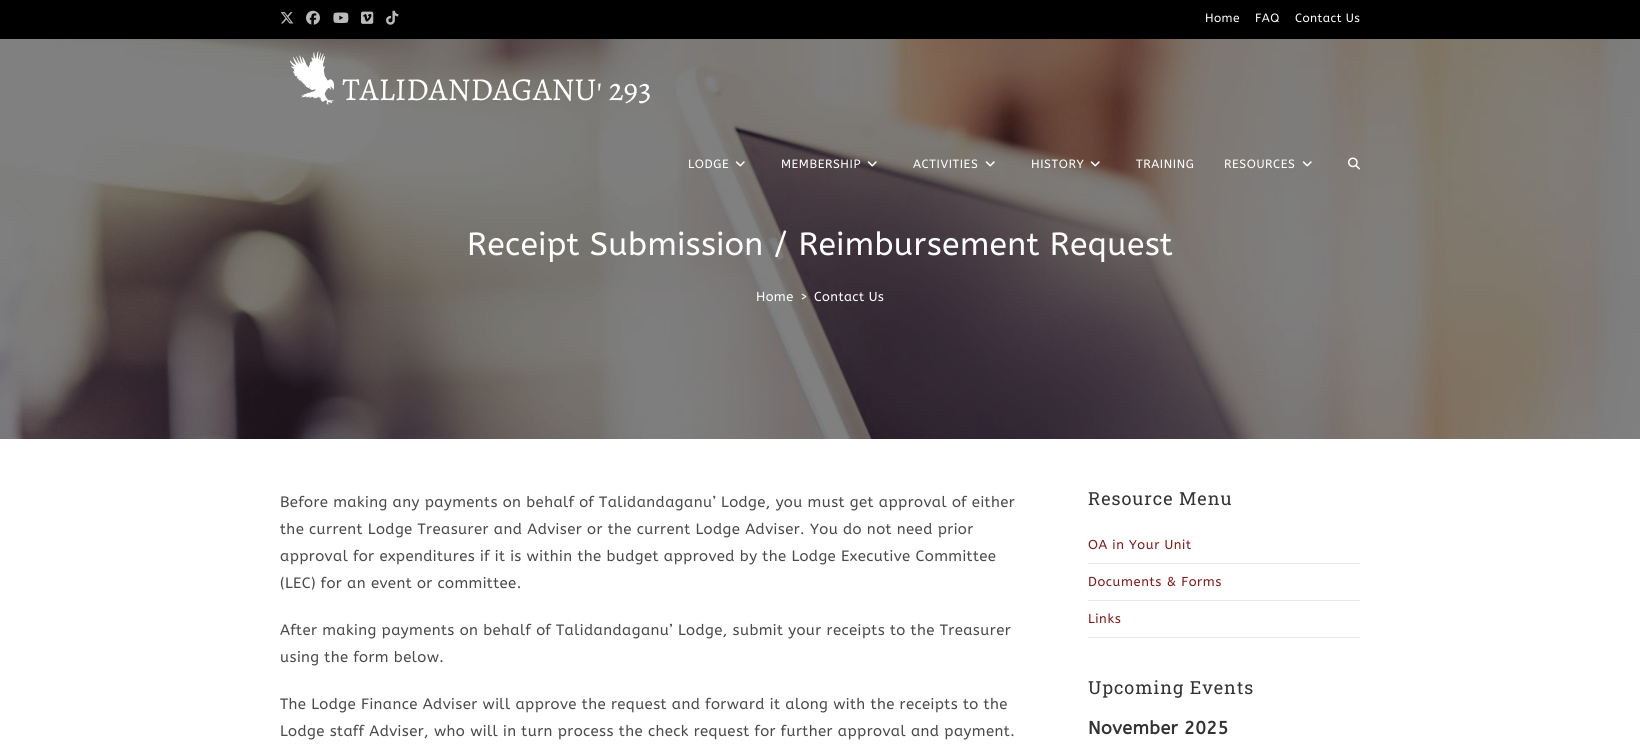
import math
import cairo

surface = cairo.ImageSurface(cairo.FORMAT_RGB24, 1640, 744)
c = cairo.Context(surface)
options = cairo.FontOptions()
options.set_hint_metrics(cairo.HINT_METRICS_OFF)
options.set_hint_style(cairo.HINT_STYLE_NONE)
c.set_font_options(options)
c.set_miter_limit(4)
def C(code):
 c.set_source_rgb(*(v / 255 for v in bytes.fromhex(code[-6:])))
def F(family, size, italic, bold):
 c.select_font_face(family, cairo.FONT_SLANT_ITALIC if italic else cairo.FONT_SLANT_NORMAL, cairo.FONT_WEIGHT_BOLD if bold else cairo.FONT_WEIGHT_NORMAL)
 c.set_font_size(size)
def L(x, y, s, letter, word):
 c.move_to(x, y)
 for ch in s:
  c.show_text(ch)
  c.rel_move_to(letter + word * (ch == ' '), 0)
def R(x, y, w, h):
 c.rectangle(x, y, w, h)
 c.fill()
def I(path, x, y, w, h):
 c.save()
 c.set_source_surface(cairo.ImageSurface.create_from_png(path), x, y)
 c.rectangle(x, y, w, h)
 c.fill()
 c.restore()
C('ffffff')
c.paint()
C('000000')
R(0,0,1640,39)
I('1.png',280,12,14,12)
I('2.png',306,10,14,15)
I('3.png',333,12,16,11)
I('4.png',361,11,13,13)
I('5.png',386,10,13,15)
F('ABeeZee',12,0,0)
C('ffffff')
L(1205,22,'Home',.4,0)
L(1255,22,'FAQ',.4,0)
L(1295,22,'Contact Us',.4,0)
I('13.png',0,39,1640,400)
I('6.png',290,51,360,54)
L(688,168,'LODGE',.6,0)
I('7.png',735,161,10,6)
L(781,168,'MEMBERSHIP',.6,0)
I('8.png',867,161,10,6)
L(913,168,'ACTIVITIES',.6,0)
I('9.png',985,161,10,6)
L(1031,168,'HISTORY',.6,0)
I('10.png',1090,161,10,6)
L(1136,168,'TRAINING',.6,0)
L(1224,168,'RESOURCES',.6,0)
I('11.png',1302,161,10,6)
I('12.png',1348,157,12,13)
F('ABeeZee',32,0,0)
L(467,255,'Receipt Submission / Reimbursement Request',.4,0)
F('ABeeZee',13,0,0)
L(756,301,'Home',.4,0)
L(800,301,'>',.4,0)
L(814,301,'Contact Us',.4,0)
F('ABeeZee',15,0,0)
C('4a4a4a')
L(280,507,'Before making any payments on behalf of Talidandaganu’ Lodge, you must get approval of either',.4,0)
L(280,534,'the current Lodge Treasurer and Adviser or the current Lodge Adviser. You do not need prior',.4,0)
L(280,561,'approval for expenditures if it is within the budget approved by the Lodge Executive Committee',.4,0)
L(280,588,'(LEC) for an event or committee.',.4,0)
L(280,635,'After making payments on behalf of Talidandaganu’ Lodge, submit your receipts to the Treasurer',.4,0)
L(280,662,'using the form below.',.4,0)
L(280,709,'The Lodge Finance Adviser will approve the request and forward it along with the receipts to the',.4,0)
L(280,736,'Lodge staff Adviser, who will in turn process the check request for further approval and payment.',.4,0)
F('Roboto Slab',18,0,0)
C('333333')
L(1088,505,'Resource Menu',1,0)
C('e9e9e9')
R(1088,563,272,1)
F('ABeeZee',13,0,0)
C('821a1a')
L(1088,549,'OA in Your Unit',.6,0)
C('e9e9e9')
R(1088,600,272,1)
C('821a1a')
L(1088,586,'Documents & Forms',.6,0)
C('e9e9e9')
R(1088,637,272,1)
C('821a1a')
L(1088,623,'Links',.6,0)
F('Roboto Slab',18,0,0)
C('333333')
L(1088,694,'Upcoming Events',1,0)
F('ABeeZee',18,0,1)
L(1088,734,'November 2025',.4,0)
surface.write_to_png('o.png')
